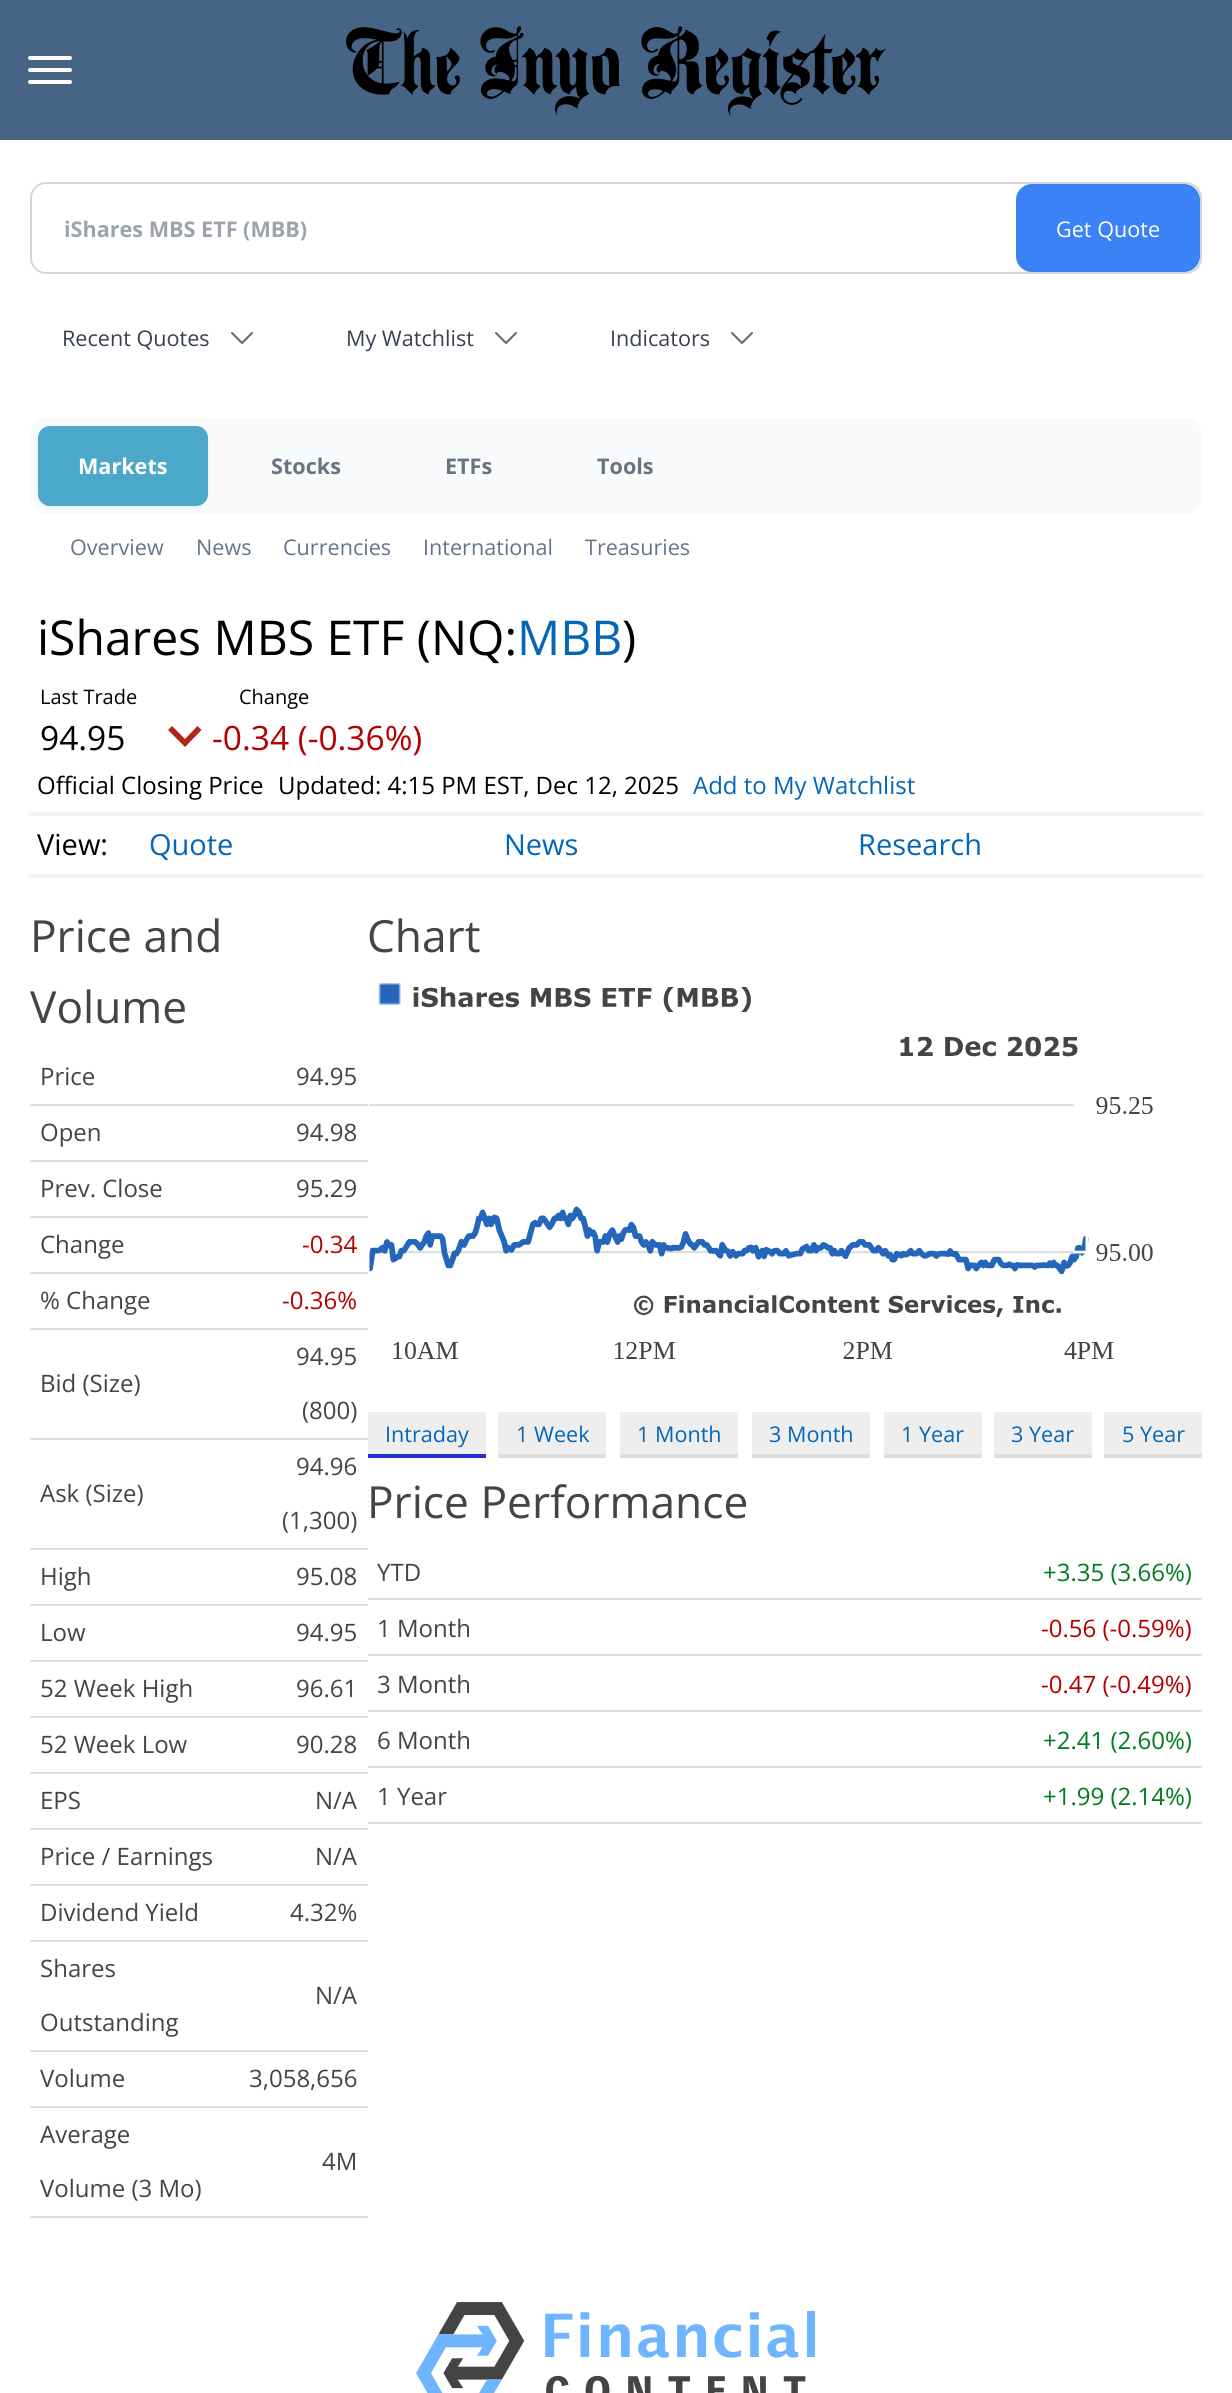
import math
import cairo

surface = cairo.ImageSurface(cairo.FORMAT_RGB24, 1232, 2393)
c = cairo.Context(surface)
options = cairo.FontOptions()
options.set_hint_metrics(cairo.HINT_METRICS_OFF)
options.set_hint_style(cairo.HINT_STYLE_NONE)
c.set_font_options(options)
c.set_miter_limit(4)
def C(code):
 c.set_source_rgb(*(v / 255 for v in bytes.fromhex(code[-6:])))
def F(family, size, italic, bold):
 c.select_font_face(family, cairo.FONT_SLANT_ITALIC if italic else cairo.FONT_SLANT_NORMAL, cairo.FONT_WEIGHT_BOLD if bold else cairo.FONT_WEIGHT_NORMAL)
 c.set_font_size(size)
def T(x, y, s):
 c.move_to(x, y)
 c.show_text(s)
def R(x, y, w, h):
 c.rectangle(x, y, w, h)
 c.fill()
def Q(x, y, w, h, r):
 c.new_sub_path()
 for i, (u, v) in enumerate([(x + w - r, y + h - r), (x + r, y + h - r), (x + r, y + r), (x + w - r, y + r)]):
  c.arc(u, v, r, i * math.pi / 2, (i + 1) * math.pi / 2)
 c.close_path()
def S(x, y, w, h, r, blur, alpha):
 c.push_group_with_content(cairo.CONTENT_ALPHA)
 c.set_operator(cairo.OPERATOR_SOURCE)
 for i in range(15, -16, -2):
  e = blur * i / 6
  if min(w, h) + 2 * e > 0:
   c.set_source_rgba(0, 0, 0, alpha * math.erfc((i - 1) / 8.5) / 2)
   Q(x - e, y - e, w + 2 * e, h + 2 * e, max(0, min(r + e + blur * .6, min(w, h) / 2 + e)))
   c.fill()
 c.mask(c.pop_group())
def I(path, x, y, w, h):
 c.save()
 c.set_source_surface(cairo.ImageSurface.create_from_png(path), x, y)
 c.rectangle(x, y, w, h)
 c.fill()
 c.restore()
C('ffffff')
c.paint()
C('466486')
R(0,0,1232,140)
C('ffffff')
Q(28,56,44,4,2)
c.fill()
Q(28,68,44,4,2)
c.fill()
Q(28,80,44,4,2)
c.fill()
I('1.png',346,26,540,90)
Q(31,183,1170,90,15)
C('d1d5db')
c.stroke()
F('Open Sans',21.6,0,1)
C('9ca3af')
T(64,237,'iShares MBS ETF (MBB)')
C('3b82f6')
Q(1016,184,184,88,16)
c.fill()
F('Open Sans',21.6,0,0)
C('ffffff')
T(1056,237,'Get Quote')
C('374151')
T(62,346,'Recent Quotes')
c.new_path()
c.move_to(252,333)
c.line_to(242,343)
c.line_to(232,333)
C('666666')
c.set_line_cap(cairo.LINE_CAP_ROUND)
c.set_line_join(cairo.LINE_JOIN_ROUND)
c.stroke()
C('374151')
T(346,346,'My Watchlist')
c.new_path()
c.move_to(516,333)
c.line_to(506,343)
c.line_to(496,333)
C('666666')
c.stroke()
C('374151')
T(610,346,'Indicators')
c.new_path()
c.move_to(752,333)
c.line_to(742,343)
c.line_to(732,333)
C('666666')
c.stroke()
C('f8fafc')
Q(30,418,1172,96,16)
c.fill()
C('000000')
S(38,428,170,80,12,2,.05)
C('4ca8c8')
Q(38,426,170,80,12)
c.fill()
F('Open Sans',21.6,0,1)
C('ffffff')
T(78,474,'Markets')
C('6b7280')
T(271,474,'Stocks')
T(445,474,'ETFs')
T(597,474,'Tools')
F('Open Sans',21.6,0,0)
C('64748b')
T(70,555,'Overview')
T(196,555,'News')
T(283,555,'Currencies')
T(423,555,'International')
T(585,555,'Treasuries')
F('Open Sans',48,0,0)
C('000000')
T(37,655,'iShares MBS ETF (NQ:')
C('0466b6')
T(517,655,'MBB')
C('000000')
T(622,655,')')
F('Open Sans',20,0,0)
T(40,704,'Last Trade')
F('Open Sans',33.5,0,0)
T(40,750,'94.95')
F('Open Sans',20,0,0)
T(239,704,'Change')
F('Open Sans',33.5,0,0)
C('b50000')
T(212,750,'-0.34 (-0.36%)')
C('b32317')
c.new_path()
c.move_to(197.5,726)
c.line_to(201.5,730)
c.line_to(185,747)
c.line_to(168,730)
c.line_to(172,726)
c.line_to(185,739)
c.close_path()
c.fill()
F('Open Sans',24,0,0)
C('000000')
T(37,794,'Official Closing Price')
T(278,794,'Updated: 4:15 PM EST, Dec 12, 2025')
C('0466b6')
T(693,794,'Add to My Watchlist')
C('f3f3f3')
R(28,812,1176,4)
R(28,874,1176,4)
F('Open Sans',29,0,0)
C('000000')
T(37,855,'View:')
C('0466b6')
T(149,855,'Quote')
T(504,855,'News')
T(858,855,'Research')
F('Open Sans',44.25,0,0)
C('444444')
T(30,952,'Price and')
T(30,1023,'Volume')
C('dddddd')
R(30,1104,338,2)
F('Open Sans',24,0,0)
C('444444')
T(40,1085,'Price')
T(296,1085,'94.95')
C('dddddd')
R(30,1160,338,2)
C('444444')
T(40,1141,'Open')
T(296,1141,'94.98')
C('dddddd')
R(30,1216,338,2)
C('444444')
T(40,1197,'Prev. Close')
T(296,1197,'95.29')
C('dddddd')
R(30,1272,338,2)
C('444444')
T(40,1253,'Change')
C('b50000')
T(302,1253,'-0.34')
C('dddddd')
R(30,1328,338,2)
C('444444')
T(40,1309,'% Change')
C('b50000')
T(282,1309,'-0.36%')
C('dddddd')
R(30,1438,338,2)
C('444444')
T(40,1392,'Bid (Size)')
T(296,1365,'94.95')
T(302,1419,'(800)')
C('dddddd')
R(30,1548,338,2)
C('444444')
T(40,1502,'Ask (Size)')
T(296,1475,'94.96')
T(282,1529,'(1,300)')
C('dddddd')
R(30,1604,338,2)
C('444444')
T(40,1585,'High')
T(296,1585,'95.08')
C('dddddd')
R(30,1660,338,2)
C('444444')
T(40,1641,'Low')
T(296,1641,'94.95')
C('dddddd')
R(30,1716,338,2)
C('444444')
T(40,1697,'52 Week High')
T(296,1697,'96.61')
C('dddddd')
R(30,1772,338,2)
C('444444')
T(40,1753,'52 Week Low')
T(296,1753,'90.28')
C('dddddd')
R(30,1828,338,2)
C('444444')
T(40,1809,'EPS')
T(315,1809,'N/A')
C('dddddd')
R(30,1884,338,2)
C('444444')
T(40,1865,'Price / Earnings')
T(315,1865,'N/A')
C('dddddd')
R(30,1940,338,2)
C('444444')
T(40,1921,'Dividend Yield')
T(290,1921,'4.32%')
C('dddddd')
R(30,2050,338,2)
C('444444')
T(40,1977,'Shares')
T(40,2031,'Outstanding')
T(315,2004,'N/A')
C('dddddd')
R(30,2106,338,2)
C('444444')
T(40,2087,'Volume')
T(249,2087,'3,058,656')
C('dddddd')
R(30,2216,338,2)
C('444444')
T(40,2143,'Average')
T(40,2197,'Volume (3 Mo)')
T(322,2170,'4M')
F('Open Sans',44.25,0,0)
T(367,952,'Chart')
I('2.png',369,983,784,376)
C('eeeeee')
R(368,1412,118,42)
C('2233cc')
R(368,1454,118,4)
F('Open Sans',21.6,0,0)
C('0466b6')
T(385,1442,'Intraday')
C('eeeeee')
R(498,1412,108,42)
C('dddddd')
R(498,1454,108,4)
C('0466b6')
T(516,1442,'1 Week')
C('eeeeee')
R(620,1412,118,42)
C('dddddd')
R(620,1454,118,4)
C('0466b6')
T(637,1442,'1 Month')
C('eeeeee')
R(752,1412,118,42)
C('dddddd')
R(752,1454,118,4)
C('0466b6')
T(769,1442,'3 Month')
C('eeeeee')
R(884,1412,98,42)
C('dddddd')
R(884,1454,98,4)
C('0466b6')
T(901,1442,'1 Year')
C('eeeeee')
R(994,1412,98,42)
C('dddddd')
R(994,1454,98,4)
C('0466b6')
T(1011,1442,'3 Year')
C('eeeeee')
R(1104,1412,98,42)
C('dddddd')
R(1104,1454,98,4)
C('0466b6')
T(1122,1442,'5 Year')
F('Open Sans',44.25,0,0)
C('444444')
T(367,1518,'Price Performance')
C('dddddd')
R(368,1598,834,2)
F('Open Sans',24,0,0)
C('444444')
T(377,1581,'YTD')
C('007c1d')
T(1043,1581,'+3.35 (3.66%)')
C('dddddd')
R(368,1654,834,2)
C('444444')
T(377,1637,'1 Month')
C('b50000')
T(1041,1637,'-0.56 (-0.59%)')
C('dddddd')
R(368,1710,834,2)
C('444444')
T(377,1693,'3 Month')
C('b50000')
T(1041,1693,'-0.47 (-0.49%)')
C('dddddd')
R(368,1766,834,2)
C('444444')
T(377,1749,'6 Month')
C('007c1d')
T(1043,1749,'+2.41 (2.60%)')
C('dddddd')
R(368,1822,834,2)
C('444444')
T(377,1805,'1 Year')
C('007c1d')
T(1043,1805,'+1.99 (2.14%)')
I('3.png',416,2302,399,91)
surface.write_to_png('o.png')
